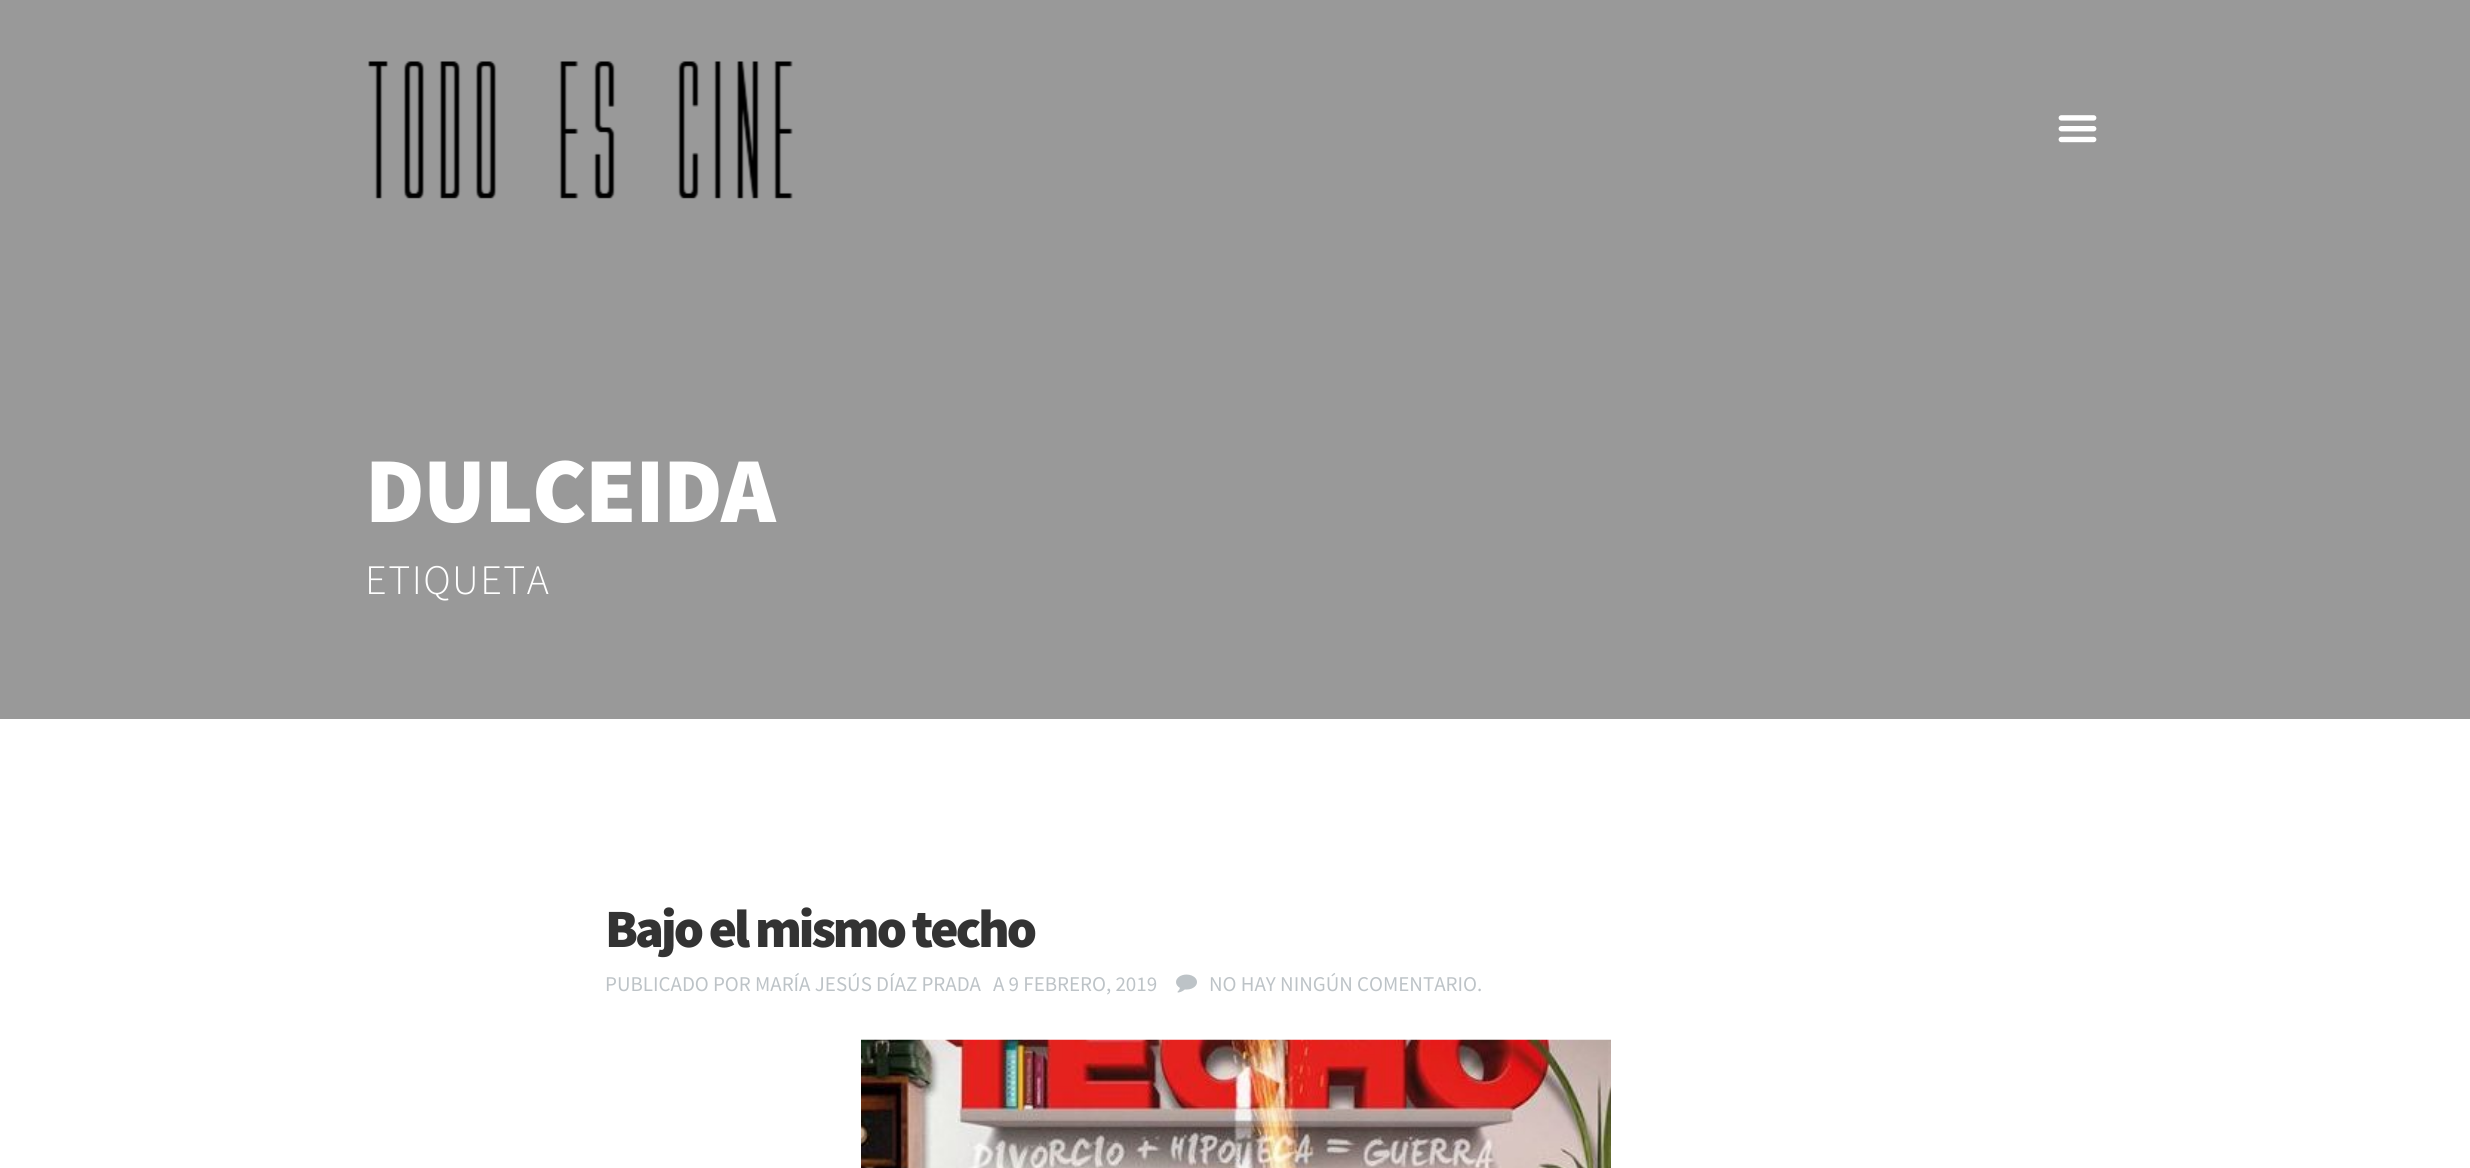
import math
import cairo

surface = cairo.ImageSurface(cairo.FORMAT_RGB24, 2470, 1168)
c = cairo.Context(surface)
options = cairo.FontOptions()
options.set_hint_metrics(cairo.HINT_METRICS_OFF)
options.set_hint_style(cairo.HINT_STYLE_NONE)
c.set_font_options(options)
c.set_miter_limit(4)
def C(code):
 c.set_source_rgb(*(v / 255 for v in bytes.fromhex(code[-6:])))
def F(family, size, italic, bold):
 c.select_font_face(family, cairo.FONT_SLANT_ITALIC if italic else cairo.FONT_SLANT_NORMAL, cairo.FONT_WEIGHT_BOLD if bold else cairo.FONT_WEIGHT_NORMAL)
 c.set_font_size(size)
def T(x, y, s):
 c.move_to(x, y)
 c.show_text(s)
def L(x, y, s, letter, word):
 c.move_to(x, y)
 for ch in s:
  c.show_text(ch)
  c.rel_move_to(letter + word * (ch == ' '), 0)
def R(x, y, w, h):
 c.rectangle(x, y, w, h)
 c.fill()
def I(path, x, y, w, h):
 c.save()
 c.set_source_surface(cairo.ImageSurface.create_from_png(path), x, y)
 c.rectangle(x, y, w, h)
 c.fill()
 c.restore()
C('ffffff')
c.paint()
C('999999')
R(0,0,2470,719)
I('1.png',368,61,425,138)
I('2.png',2058,115,39,28)
F('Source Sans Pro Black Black',93,0,0)
C('ffffff')
L(365,522,'DULCEIDA',-1.5,0)
F('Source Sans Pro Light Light',42,0,0)
L(365,594,'ETIQUETA',1.5,0)
F('Source Sans Pro Black Black',54,0,0)
C('333333')
L(605,947,'Bajo el mismo techo',-3,0)
F('Source Sans Pro',21,0,0)
C('bdc3c7')
T(605,991,'PUBLICADO POR MARÍA JESÚS DÍAZ PRADA')
T(993,991,'A 9 FEBRERO, 2019')
I('3.png',1176,974,21,19)
T(1209,991,'NO HAY NINGÚN COMENTARIO.')
I('4.png',861,1039,750,129)
surface.write_to_png('o.png')
